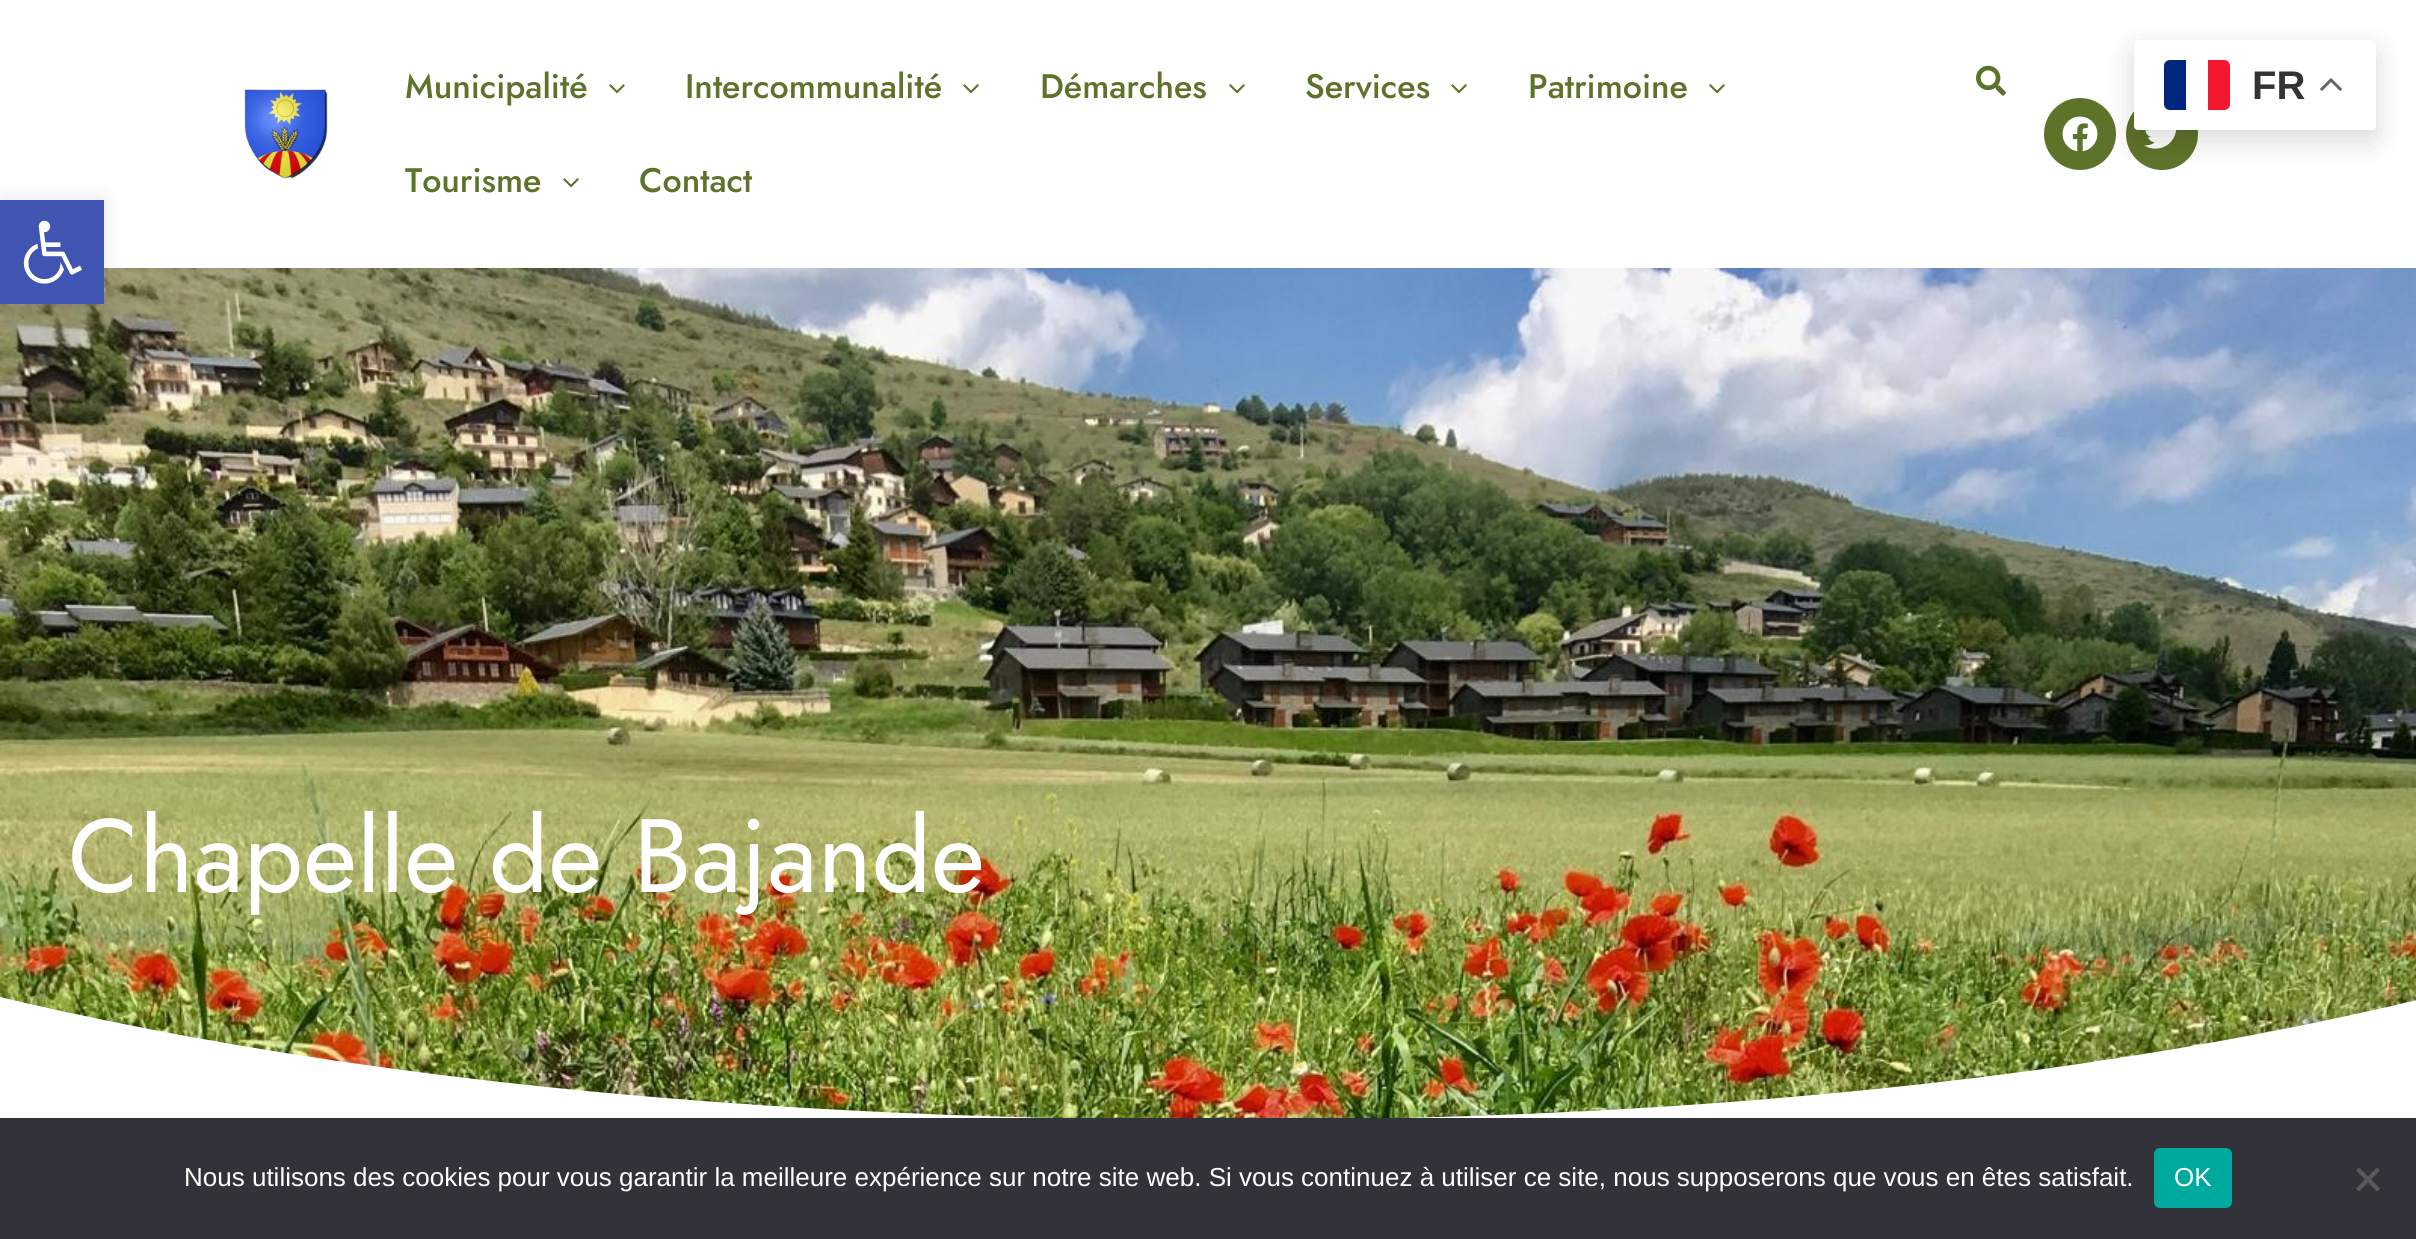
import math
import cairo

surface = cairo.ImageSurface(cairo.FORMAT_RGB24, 2416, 1239)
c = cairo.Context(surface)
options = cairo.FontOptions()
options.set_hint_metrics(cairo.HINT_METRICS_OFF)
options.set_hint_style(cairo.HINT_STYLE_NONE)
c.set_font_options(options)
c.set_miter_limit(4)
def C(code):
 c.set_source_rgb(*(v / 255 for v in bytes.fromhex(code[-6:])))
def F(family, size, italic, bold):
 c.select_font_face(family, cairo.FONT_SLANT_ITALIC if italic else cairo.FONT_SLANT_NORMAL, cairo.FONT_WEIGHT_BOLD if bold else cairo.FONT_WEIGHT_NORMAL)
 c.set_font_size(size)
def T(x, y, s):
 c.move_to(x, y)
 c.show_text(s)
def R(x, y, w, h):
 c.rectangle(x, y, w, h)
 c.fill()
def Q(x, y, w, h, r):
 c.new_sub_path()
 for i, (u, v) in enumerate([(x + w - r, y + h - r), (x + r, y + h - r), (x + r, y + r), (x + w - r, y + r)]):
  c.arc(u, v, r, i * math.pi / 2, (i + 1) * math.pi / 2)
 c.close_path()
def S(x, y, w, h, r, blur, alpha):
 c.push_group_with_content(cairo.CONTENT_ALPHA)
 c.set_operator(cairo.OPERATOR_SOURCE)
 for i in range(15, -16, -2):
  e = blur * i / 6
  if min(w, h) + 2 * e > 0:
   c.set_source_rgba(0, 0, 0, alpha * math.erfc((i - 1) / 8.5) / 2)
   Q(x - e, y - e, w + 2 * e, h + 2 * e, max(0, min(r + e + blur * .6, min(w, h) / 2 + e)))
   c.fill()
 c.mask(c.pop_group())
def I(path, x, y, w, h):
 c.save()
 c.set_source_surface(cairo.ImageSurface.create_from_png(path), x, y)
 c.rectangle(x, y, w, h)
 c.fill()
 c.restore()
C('ffffff')
c.paint()
I('1.png',244,89,84,90)
F('Jost Medium',34,0,0)
C('5e732a')
T(405,98,'Municipalité')
I('2.png',609,84,16,10)
T(685,98,'Intercommunalité')
I('2.png',963,84,16,10)
T(1040,98,'Démarches')
I('2.png',1229,84,16,10)
T(1305,98,'Services')
I('2.png',1451,84,16,10)
T(1528,98,'Patrimoine')
I('2.png',1709,84,16,10)
T(405,192,'Tourisme')
I('2.png',563,178,16,10)
T(639,192,'Contact')
I('3.png',1976,65,30,31)
c.arc(2080,134,36,0,2 * math.pi)
c.fill()
I('4.png',2062,116,36,36)
c.arc(2162,134,36,0,2 * math.pi)
c.fill()
I('5.png',2144,130,33,19)
I('6.png',0,268,2416,850)
F('Jost',104,0,0)
C('ffffff')
T(68,892,'Chapelle de Bajande')
c.new_path()
c.move_to(1208,1120)
c.curve_to(-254,1116,-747,713,-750,608)
c.line_to(-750,1136)
c.line_to(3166,1136)
c.line_to(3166,613)
c.curve_to(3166,710,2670,1124,1208,1120)
c.close_path()
c.fill()
C('000000')
S(2134,50,242,90,4,15,.15)
C('ffffff')
Q(2134,40,242,90,4)
c.fill()
C('00267f')
c.new_path()
c.move_to(2170,60)
c.line_to(2186,60)
c.line_to(2186,110)
c.line_to(2170,110)
c.curve_to(2166.5,110,2164,107.5,2164,104)
c.line_to(2164,66)
c.curve_to(2164,62.5,2166.5,60,2170,60)
c.close_path()
c.fill()
C('f31830')
c.new_path()
c.move_to(2208,60)
c.line_to(2224,60)
c.curve_to(2227.5,60,2230,62.5,2230,66)
c.line_to(2230,104)
c.curve_to(2230,107.5,2227.5,110,2224,110)
c.line_to(2208,110)
c.close_path()
c.fill()
F('Liberation Sans',40,0,1)
C('333333')
T(2252,99,'FR')
I('7.png',2320,78,22,13)
C('000000')
S(0,200,104,104,0,10,.1)
C('4054b2')
R(0,200,104,104)
I('8.png',23,220,59,64)
C('32323a')
R(0,1118,2416,121)
F('Liberation Sans',26,0,0)
C('ffffff')
T(184,1186,'Nous utilisons des cookies pour vous garantir la meilleure expérience sur notre site web. Si vous continuez à utiliser ce site, nous supposerons que vous en êtes satisfait.')
C('00a99d')
Q(2154,1148,78,60,6)
c.fill()
C('ffffff')
T(2174,1186,'OK')
C('59595d')
c.new_path()
c.move_to(2377,1167.5)
c.line_to(2380,1170.5)
c.line_to(2359,1191.5)
c.line_to(2356,1188.5)
c.close_path()
c.fill()
c.new_path()
c.move_to(2356,1170.5)
c.line_to(2359,1167.5)
c.line_to(2380,1188.5)
c.line_to(2377,1191.5)
c.close_path()
c.fill()
surface.write_to_png('o.png')
